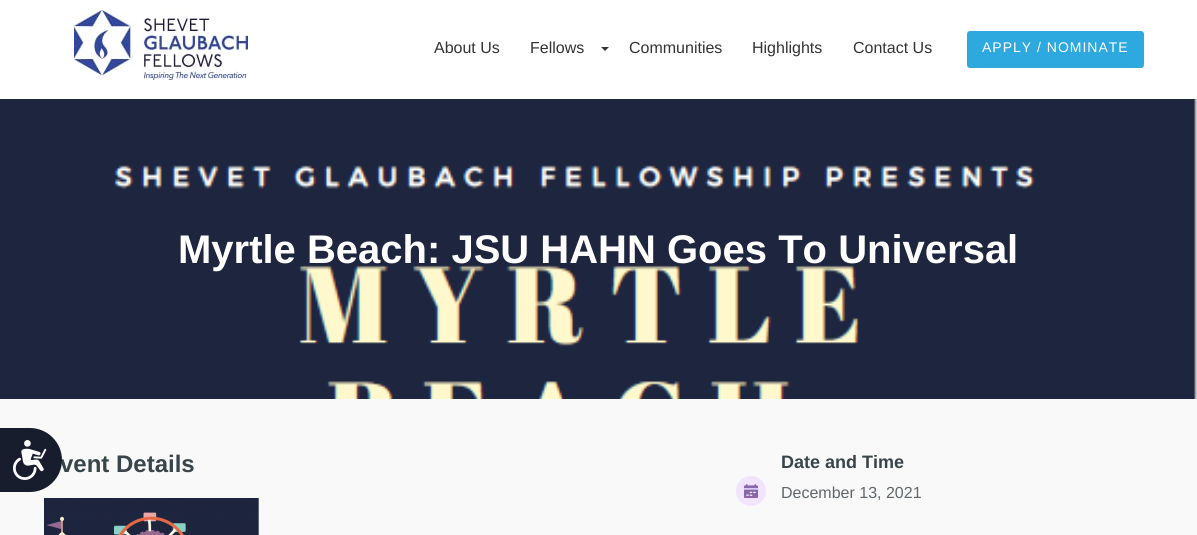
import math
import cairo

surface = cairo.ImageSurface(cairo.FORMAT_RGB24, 1197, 535)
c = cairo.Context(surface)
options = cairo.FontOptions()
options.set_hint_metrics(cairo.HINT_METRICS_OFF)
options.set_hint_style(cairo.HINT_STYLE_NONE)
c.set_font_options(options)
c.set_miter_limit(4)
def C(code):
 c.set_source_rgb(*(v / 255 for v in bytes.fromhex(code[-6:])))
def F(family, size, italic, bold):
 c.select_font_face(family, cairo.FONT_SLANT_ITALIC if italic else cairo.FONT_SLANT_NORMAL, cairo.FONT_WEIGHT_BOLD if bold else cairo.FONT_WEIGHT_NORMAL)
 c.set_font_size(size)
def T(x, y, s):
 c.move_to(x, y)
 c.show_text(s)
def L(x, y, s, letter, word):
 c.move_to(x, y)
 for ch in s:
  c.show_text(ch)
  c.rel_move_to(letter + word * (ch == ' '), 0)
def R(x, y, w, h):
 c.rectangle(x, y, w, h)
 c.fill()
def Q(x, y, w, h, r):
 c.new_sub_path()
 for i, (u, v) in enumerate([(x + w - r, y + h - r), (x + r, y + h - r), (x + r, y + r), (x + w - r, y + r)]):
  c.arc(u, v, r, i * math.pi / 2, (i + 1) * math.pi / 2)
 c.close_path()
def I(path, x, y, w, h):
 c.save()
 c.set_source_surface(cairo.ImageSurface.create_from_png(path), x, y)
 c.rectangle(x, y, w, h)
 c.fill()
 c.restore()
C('ffffff')
c.paint()
I('1.png',74,10,174,70)
F('Liberation Sans',16,0,0)
C('333333')
T(434,53,'About Us')
T(530,53,'Fellows')
c.new_path()
c.move_to(601,47)
c.line_to(609,47)
c.line_to(605,51)
c.close_path()
c.fill()
T(629,53,'Communities')
T(752,53,'Highlights')
T(853,53,'Contact Us')
C('2ea9e0')
Q(967,31,177,37,3)
c.fill()
F('Liberation Sans',14,0,0)
C('ffffff')
L(982,52,'APPLY / NOMINATE',1,0)
C('f9f9f9')
R(0,399,1197,136)
F('Liberation Sans',24,0,1)
C('38454a')
T(60,472,'vent Details')
C('171d2d')
c.new_path()
c.move_to(0,428)
c.line_to(30,428)
c.curve_to(47.5,428,62,442.5,62,460)
c.curve_to(62,477.5,47.5,492,30,492)
c.line_to(0,492)
c.close_path()
c.fill()
I('2.png',13,440,34,40)
I('3.png',0,99,1197,300)
F('Liberation Sans',40,0,1)
C('ffffff')
T(178,263,'Myrtle Beach: JSU HAHN Goes To Universal')
I('4.png',44,498,215,37)
I('5.png',736,476,30,30)
F('Liberation Sans',18,0,1)
C('38454a')
T(781,468,'Date and Time')
F('Liberation Sans',16,0,0)
C('60676a')
T(781,498,'December 13, 2021')
surface.write_to_png('o.png')
